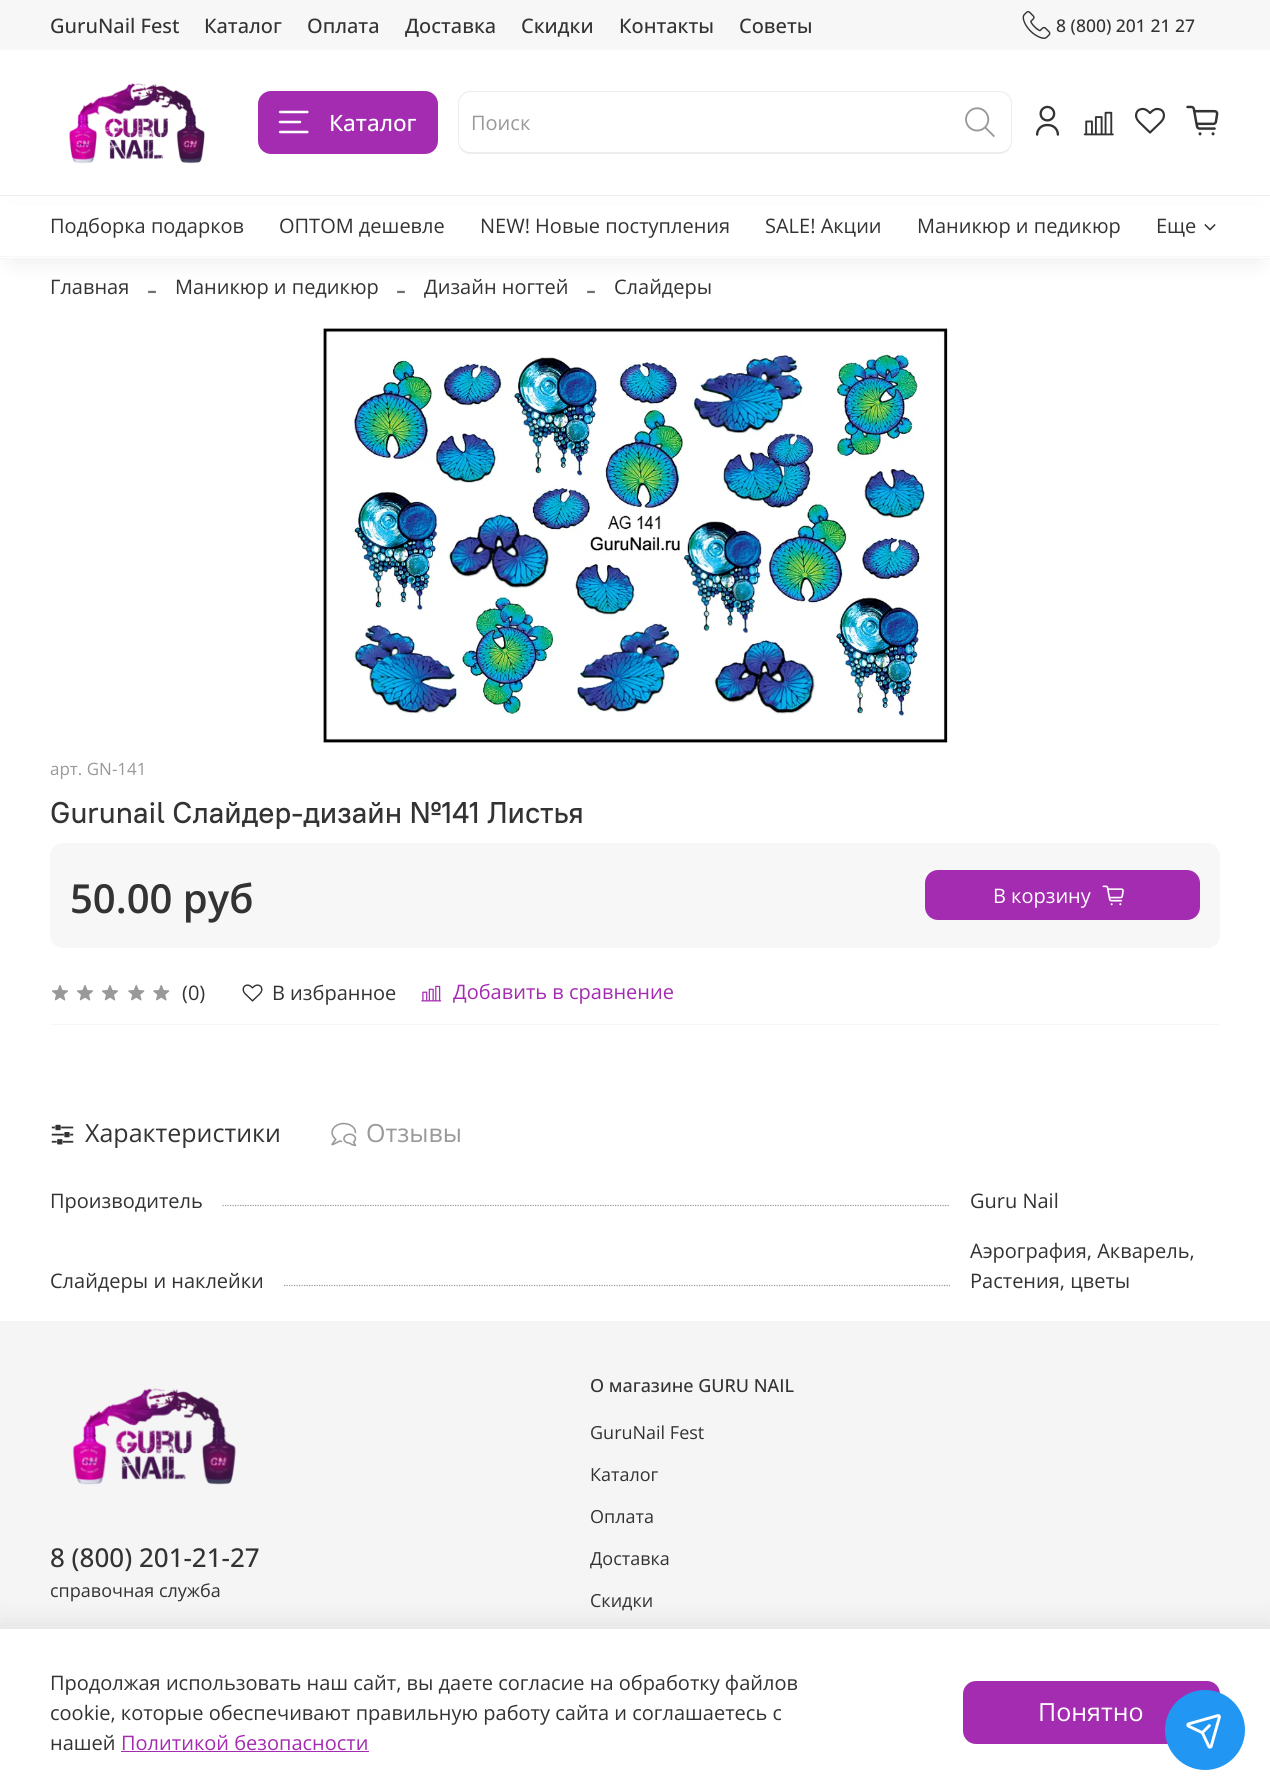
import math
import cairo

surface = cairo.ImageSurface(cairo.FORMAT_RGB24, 1270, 1782)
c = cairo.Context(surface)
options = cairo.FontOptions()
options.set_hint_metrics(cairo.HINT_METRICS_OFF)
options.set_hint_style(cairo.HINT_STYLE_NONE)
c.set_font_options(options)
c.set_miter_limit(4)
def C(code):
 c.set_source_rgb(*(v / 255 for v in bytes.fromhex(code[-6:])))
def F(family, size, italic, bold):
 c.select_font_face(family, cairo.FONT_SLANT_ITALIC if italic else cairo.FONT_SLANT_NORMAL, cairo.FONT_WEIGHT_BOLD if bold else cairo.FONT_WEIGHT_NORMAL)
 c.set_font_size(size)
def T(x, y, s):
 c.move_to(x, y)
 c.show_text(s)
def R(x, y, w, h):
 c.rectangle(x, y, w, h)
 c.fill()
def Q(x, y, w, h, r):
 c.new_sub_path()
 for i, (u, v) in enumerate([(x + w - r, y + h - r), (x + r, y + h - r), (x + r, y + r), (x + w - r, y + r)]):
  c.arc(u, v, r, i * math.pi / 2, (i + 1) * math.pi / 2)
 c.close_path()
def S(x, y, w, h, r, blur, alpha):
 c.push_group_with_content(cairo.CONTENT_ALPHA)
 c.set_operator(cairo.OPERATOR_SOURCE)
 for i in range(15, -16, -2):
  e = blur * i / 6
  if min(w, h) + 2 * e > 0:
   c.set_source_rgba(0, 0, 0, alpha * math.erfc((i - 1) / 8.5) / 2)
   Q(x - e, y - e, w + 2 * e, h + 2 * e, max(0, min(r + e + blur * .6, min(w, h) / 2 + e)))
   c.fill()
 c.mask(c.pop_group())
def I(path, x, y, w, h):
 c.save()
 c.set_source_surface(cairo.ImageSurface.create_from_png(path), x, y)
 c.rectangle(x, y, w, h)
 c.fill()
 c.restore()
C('ffffff')
c.paint()
C('f7f7f7')
R(0,0,1270,50)
F('Open Sans Medium',20,0,0)
C('333333')
T(50,33,'GuruNail Fest')
T(204,33,'Каталог')
T(307,33,'Оплата')
T(405,33,'Доставка')
T(521,33,'Скидки')
T(619,33,'Контакты')
T(739,33,'Советы')
I('1.png',1022,11,29,28)
F('Open Sans Medium',17.5,0,0)
T(1056,32,'8 (800) 201 21 27')
C('ededed')
R(0,195,1270,1)
I('2.png',69,83,136,81)
C('a42cb0')
Q(258,91,180,63,13)
c.fill()
I('3.png',278,110,31,24)
F('Open Sans Medium',22.5,0,0)
C('ffffff')
T(329,131,'Каталог')
C('ededed')
c.set_fill_rule(cairo.FILL_RULE_EVEN_ODD)
c.new_path()
c.move_to(470,91)
c.line_to(950,91)
c.line_to(950,154)
c.line_to(470,154)
c.curve_to(463,154,458,148,458,141)
c.line_to(458,104)
c.curve_to(458,97,463,91,470,91)
c.close_path()
c.move_to(470,92)
c.line_to(950,92)
c.line_to(950,152)
c.line_to(470,152)
c.curve_to(464,152,459,147,459,141)
c.line_to(459,104)
c.curve_to(459,98,464,92,470,92)
c.close_path()
c.fill()
F('Open Sans',20,0,0)
C('999999')
T(471,130,'Поиск')
C('ededed')
c.new_path()
c.move_to(950,91)
c.line_to(1000,91)
c.curve_to(1007,91,1012,97,1012,104)
c.line_to(1012,141)
c.curve_to(1012,148,1007,154,1000,154)
c.line_to(950,154)
c.close_path()
c.move_to(950,92)
c.line_to(1000,92)
c.curve_to(1006,92,1011,98,1011,104)
c.line_to(1011,141)
c.curve_to(1011,147,1006,152,1000,152)
c.line_to(950,152)
c.close_path()
c.fill()
I('4.png',965,107,30,30)
I('5.png',1035,105,25,31)
I('6.png',1083,111,31,25)
I('7.png',1135,107,30,27)
I('8.png',1186,105,33,31)
C('000000')
S(13,221,1245,37,0,12.5,.1)
C('ffffff')
R(0,205,1270,53)
C('f7f7f7')
R(0,256,1270,1)
C('333333')
T(50,233,'Подборка подарков')
T(279,233,'ОПТОМ дешевле')
T(480,233,'NEW! Новые поступления')
T(765,233,'SALE! Акции')
T(917,233,'Маникюр и педикюр')
T(1156,233,'Еще')
I('9.png',1204,224,12,7)
C('f7f7f7')
R(0,258,1270,1)
C('333333')
T(50,294,'Главная')
F('Liberation Serif',30,0,0)
C('707070')
T(147,299,'-')
F('Open Sans',20,0,0)
C('333333')
T(175,294,'Маникюр и педикюр')
F('Liberation Serif',30,0,0)
C('707070')
T(396,299,'-')
F('Open Sans',20,0,0)
C('333333')
T(424,294,'Дизайн ногтей')
F('Liberation Serif',30,0,0)
C('707070')
T(586,299,'-')
F('Open Sans',20,0,0)
C('333333')
T(614,294,'Слайдеры')
I('10.png',323,328,625,415)
F('Open Sans',17,0,0)
C('999999')
T(50,775,'арт. GN-141')
F('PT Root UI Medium',30,0,0)
C('333333')
T(50,823,'Gurunail Слайдер-дизайн №141 Листья')
C('f7f7f7')
Q(50,843,1170,105,13)
c.fill()
F('Open Sans SemiBold',40,0,0)
C('333333')
T(70,913,'50.00 руб')
C('a42cb0')
Q(925,870,275,50,13)
c.fill()
F('Open Sans',20,0,0)
C('ffffff')
T(993,903,'В корзину')
I('11.png',1102,885,22,21)
C('f7f7f7')
R(50,1024,1170,1)
I('12.png',52,985,16,16)
I('12.png',77,985,16,16)
I('12.png',102,985,16,16)
I('13.png',128,985,17,16)
I('13.png',153,985,17,16)
C('333333')
T(182,1000,'(0)')
I('14.png',242,984,21,18)
T(272,1000,'В избранное')
I('15.png',421,985,21,17)
C('a42cb0')
T(453,999,'Добавить в сравнение')
I('16.png',51,1124,23,21)
F('Open Sans',25,0,0)
C('333333')
T(85,1142,'Характеристики')
I('17.png',331,1122,26,25)
C('999999')
T(366,1142,'Отзывы')
F('Open Sans',20,0,0)
C('333333')
T(50,1208,'Производитель')
c.new_path()
c.move_to(222.5,1205.5)
c.line_to(950,1205.5)
C('999999')
c.set_line_width(1.2)
c.set_dash([1.25,1.25])
c.stroke()
C('333333')
T(970,1208,'Guru Nail')
T(50,1288,'Слайдеры и наклейки')
c.new_path()
c.move_to(284,1285.5)
c.line_to(950,1285.5)
C('999999')
c.stroke()
C('333333')
T(970,1258,'Аэрография, Акварель,')
T(970,1288,'Растения, цветы')
C('f5f5f6')
R(0,1321,1270,308)
I('18.png',72,1388,164,97)
F('Open Sans Medium',26,0,0)
C('333333')
T(50,1567,'8 (800) 201-21-27')
F('Open Sans',18,0,0)
T(50,1597,'справочная служба')
F('Open Sans Medium',18,0,0)
T(590,1392,'О магазине GURU NAIL')
F('Open Sans',18,0,0)
T(590,1439,'GuruNail Fest')
T(590,1481,'Каталог')
T(590,1523,'Оплата')
T(590,1565,'Доставка')
T(590,1607,'Скидки')
C('000000')
S(-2,1625,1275,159,0,14.5,.09)
C('ffffff')
R(0,1629,1270,153)
F('Open Sans',20,0,0)
C('333333')
T(50,1690,'Продолжая использовать наш сайт, вы даете согласие на обработку файлов')
T(50,1720,'cookie, которые обеспечивают правильную работу сайта и соглашаетесь с')
T(50,1750,'нашей')
C('a42cb0')
T(121,1750,'Политикой безопасности')
R(121,1751,248,1)
Q(963,1681,257,63,13)
c.fill()
F('Open Sans',25,0,0)
C('ffffff')
T(1038,1721,'Понятно')
C('2196f3')
c.new_path()
c.arc(1205,1730,40,0,2 * math.pi)
c.fill()
I('19.png',1186,1714,35,35)
surface.write_to_png('o.png')
